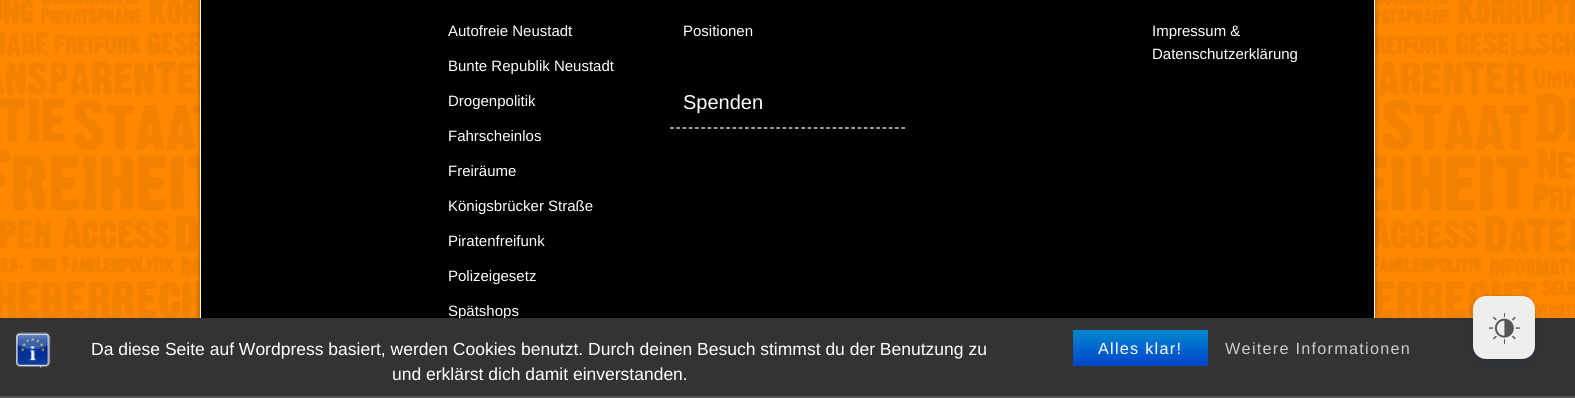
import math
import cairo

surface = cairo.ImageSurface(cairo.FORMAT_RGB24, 1575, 398)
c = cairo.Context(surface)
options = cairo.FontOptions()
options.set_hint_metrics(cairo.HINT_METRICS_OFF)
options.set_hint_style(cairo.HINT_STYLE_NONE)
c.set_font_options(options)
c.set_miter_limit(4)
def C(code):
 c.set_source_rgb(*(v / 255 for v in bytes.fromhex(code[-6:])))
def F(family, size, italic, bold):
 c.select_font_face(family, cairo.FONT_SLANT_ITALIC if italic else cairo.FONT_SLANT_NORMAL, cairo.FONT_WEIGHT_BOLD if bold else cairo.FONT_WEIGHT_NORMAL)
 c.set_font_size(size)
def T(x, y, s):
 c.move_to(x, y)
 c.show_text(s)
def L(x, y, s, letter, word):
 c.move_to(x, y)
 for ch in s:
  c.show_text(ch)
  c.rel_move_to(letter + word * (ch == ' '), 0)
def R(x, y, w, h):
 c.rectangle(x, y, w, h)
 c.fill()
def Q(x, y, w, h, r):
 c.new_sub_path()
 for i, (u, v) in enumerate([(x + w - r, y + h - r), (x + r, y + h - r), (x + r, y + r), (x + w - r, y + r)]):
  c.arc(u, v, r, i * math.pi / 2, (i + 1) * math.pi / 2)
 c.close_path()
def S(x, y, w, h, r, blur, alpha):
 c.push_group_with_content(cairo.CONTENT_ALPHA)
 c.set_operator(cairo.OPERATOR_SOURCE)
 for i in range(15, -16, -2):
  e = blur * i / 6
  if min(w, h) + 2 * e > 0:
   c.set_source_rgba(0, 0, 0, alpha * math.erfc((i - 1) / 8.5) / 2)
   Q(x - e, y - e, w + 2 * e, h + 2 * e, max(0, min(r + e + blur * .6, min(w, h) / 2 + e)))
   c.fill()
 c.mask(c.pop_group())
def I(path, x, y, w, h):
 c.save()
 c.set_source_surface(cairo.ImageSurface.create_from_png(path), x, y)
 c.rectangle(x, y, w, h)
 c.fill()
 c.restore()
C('ffffff')
c.paint()
I('1.png',0,0,1575,318)
C('000000')
S(200,-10,1175,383,2.5,2.5,.33)
C('000000')
R(201,0,1173,318)
c.rectangle(200.5,-.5,1174,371)
C('ffffff')
c.set_line_width(1)
c.stroke()
F('Liberation Sans',15,0,0)
T(448,36,'Autofreie Neustadt')
T(448,71,'Bunte Republik Neustadt')
T(448,106,'Drogenpolitik')
T(448,141,'Fahrscheinlos')
T(448,176,'Freiräume')
T(448,211,'Königsbrücker Straße')
T(448,246,'Piratenfreifunk')
T(448,281,'Polizeigesetz')
T(448,316,'Spätshops')
T(683,36,'Positionen')
T(1152,36,'Impressum &')
T(1152,59,'Datenschutzerklärung')
c.new_path()
c.move_to(670,128)
c.line_to(905,128)
c.set_line_width(1.2)
c.set_dash([3.75,2.5])
c.stroke()
F('Liberation Sans',20,0,0)
T(683,109,'Spenden')
C('333333')
R(0,318,1575,78)
C('555555')
R(0,396,1575,2)
I('2.png',16,332,35,36)
F('Liberation Sans',17.5,0,0)
C('ffffff')
T(91,355,'Da diese Seite auf Wordpress basiert, werden Cookies benutzt. Durch deinen Besuch stimmst du der Benutzung zu')
T(392,380,'und erklärst dich damit einverstanden.')
gradient = cairo.LinearGradient(1140,330,1140,366)
gradient.add_color_stop_rgba(0,0,0.533,0.8,1)
gradient.add_color_stop_rgba(1,0,0.267,0.8,1)
c.set_source(gradient)
R(1073,330,135,36)
F('Liberation Sans',16.25,0,0)
C('ffffff')
L(1098,354,'Alles klar!',1.25,0)
C('cccccc')
L(1225,354,'Weitere Informationen',1.25,0)
Q(1471.5,295.5,64,64,13.5)
c.set_source_rgba(0.035,0.118,0.259,0.08)
c.set_line_width(1)
c.set_dash([])
c.stroke()
C('091e42')
S(1475,304,58,57,10,5,.25)
C('eeeeee')
Q(1473,296,62,63,13)
c.fill()
I('3.png',1489,313,31,31)
surface.write_to_png('o.png')
